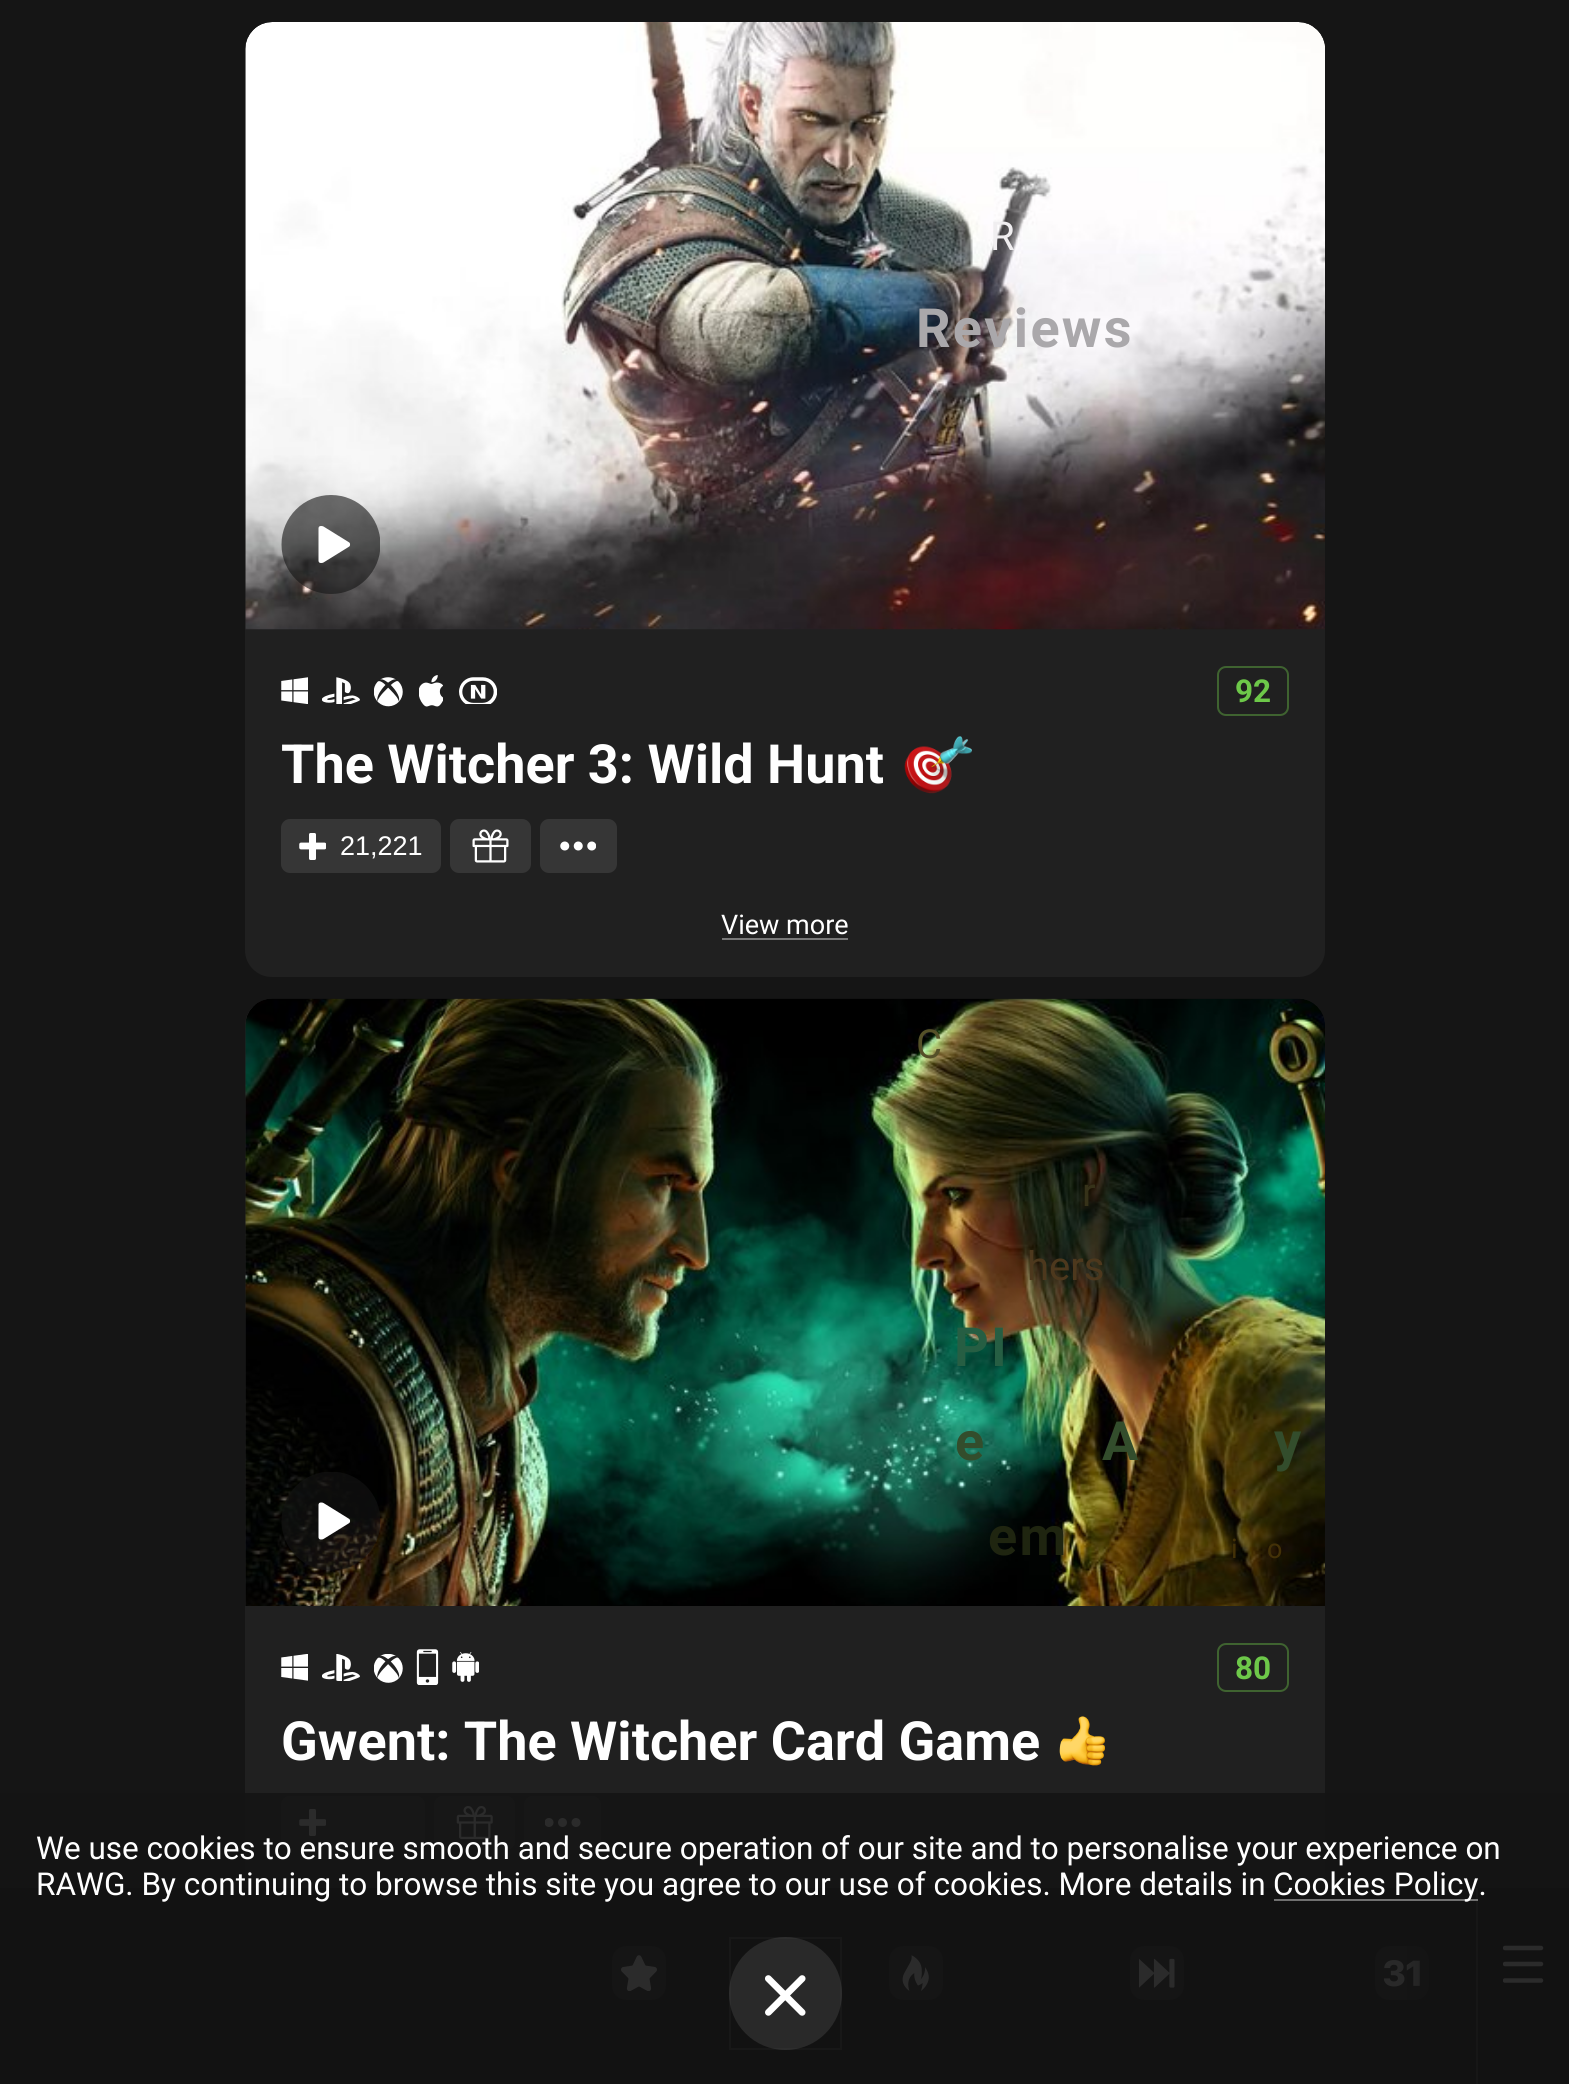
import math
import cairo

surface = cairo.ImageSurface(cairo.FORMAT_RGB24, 1569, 2084)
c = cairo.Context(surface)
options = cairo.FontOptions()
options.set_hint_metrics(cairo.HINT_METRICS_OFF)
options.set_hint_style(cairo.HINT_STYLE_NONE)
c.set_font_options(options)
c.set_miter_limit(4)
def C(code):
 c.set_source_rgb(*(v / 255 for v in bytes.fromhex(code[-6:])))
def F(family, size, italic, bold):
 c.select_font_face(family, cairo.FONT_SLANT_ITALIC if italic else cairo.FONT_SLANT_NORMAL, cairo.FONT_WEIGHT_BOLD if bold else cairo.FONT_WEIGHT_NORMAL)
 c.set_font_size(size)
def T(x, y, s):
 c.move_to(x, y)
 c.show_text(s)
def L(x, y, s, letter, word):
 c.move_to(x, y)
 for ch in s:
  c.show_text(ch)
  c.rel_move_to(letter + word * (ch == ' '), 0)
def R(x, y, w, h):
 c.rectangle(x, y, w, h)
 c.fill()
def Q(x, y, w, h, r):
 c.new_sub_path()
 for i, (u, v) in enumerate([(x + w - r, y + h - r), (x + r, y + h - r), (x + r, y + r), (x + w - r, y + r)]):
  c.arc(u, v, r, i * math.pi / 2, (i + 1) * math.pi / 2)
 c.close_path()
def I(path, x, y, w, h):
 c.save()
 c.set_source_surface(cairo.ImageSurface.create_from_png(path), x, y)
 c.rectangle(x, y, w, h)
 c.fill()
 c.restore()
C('151515')
c.paint()
C('202020')
Q(245,23,1080,954,27)
c.fill()
I('1.png',245,22,1080,608)
F('Roboto',40,0,0)
C('f0eef0')
T(990,250,'R')
F('Roboto',54,0,1)
C('aaa8ab')
L(916,347,'Reviews',2.25,0)
C('202020')
Q(245,999,1080,954,27)
c.fill()
I('11.png',245,998,1080,608)
F('Roboto',40,0,0)
C('555028')
T(916,1058,'C')
C('363219')
T(1082,1206,'r')
C('4d381d')
T(1027,1280,'hers')
F('Roboto',54,0,1)
C('265e43')
L(954,1366,'PI',2.25,0)
C('334d2c')
L(955,1460,'e',2.25,0)
L(1102,1460,'A',2.25,0)
L(1274,1460,'y',2.25,0)
C('1f2510')
L(988,1555,'em',2.25,0)
c.save()
c.rectangle(281,495,99,99)
c.clip()
c.set_source_rgba(0.082,0.082,0.082,0.6)
c.arc(331,544.5,49.5,0,2 * math.pi)
c.fill()
c.restore()
C('ffffff')
c.new_path()
c.move_to(348.5,542)
c.line_to(323.5,526.5)
c.curve_to(322.5,526,322,526,321,526)
c.curve_to(318.5,526,318.5,528,318.5,528.5)
c.line_to(318.5,560.5)
c.curve_to(318.5,561,318.5,563,321,563)
c.curve_to(322,563,322.5,563,323.5,562.5)
c.line_to(348.5,547)
c.curve_to(350.5,546,350,544.5,350,544.5)
c.curve_to(350,544.5,350.5,543,348.5,542)
c.close_path()
c.fill()
I('2.png',281,677,27,27)
I('3.png',322,677,38,27)
I('4.png',374,677,29,30)
I('5.png',419,675,24,32)
I('6.png',459,677,38,27)
Q(1218,667,70,48,8)
C('3f6330')
c.stroke()
F('Roboto',31.5,0,1)
C('6dc849')
T(1235,702,'92')
F('Roboto',54,0,1)
C('ffffff')
T(281,783,'The Witcher 3: Wild Hunt')
I('7.png',904,736,68,58)
C('363636')
Q(281,819,160,54,9)
c.fill()
I('8.png',299,833,27,27)
F('Liberation Sans',27,0,0)
C('ffffff')
T(340,855,'21,221')
C('363636')
Q(450,819,81,54,9)
c.fill()
I('9.png',472,829,37,34)
Q(540,819,77,54,9)
c.fill()
I('10.png',560,841,36,10)
C('797979')
R(722,938,126,2)
F('Roboto',27,0,0)
C('ffffff')
T(721,934,'View more')
c.save()
c.rectangle(281,1472,99,99)
c.clip()
c.set_source_rgba(0.082,0.082,0.082,0.6)
c.arc(331,1521,49.5,0,2 * math.pi)
c.fill()
c.restore()
c.new_path()
c.move_to(348.5,1518.5)
c.line_to(323.5,1503)
c.curve_to(322.5,1502.5,322,1502.5,321,1502.5)
c.curve_to(318.5,1502.5,318.5,1504.5,318.5,1505)
c.line_to(318.5,1537)
c.curve_to(318.5,1537.5,318.5,1539.5,321,1539.5)
c.curve_to(322,1539.5,322.5,1539.5,323.5,1539)
c.line_to(348.5,1523.5)
c.curve_to(350.5,1522.5,350,1521,350,1521)
c.curve_to(350,1521,350.5,1519.5,348.5,1518.5)
c.close_path()
c.fill()
C('433107')
T(1231,1558,'i')
T(1267,1558,'o')
I('12.png',281,1654,27,27)
I('13.png',322,1654,38,27)
I('14.png',374,1654,29,29)
I('15.png',416,1649,23,36)
I('16.png',452,1652,27,30)
Q(1218,1644,70,47,8)
C('3f6330')
c.stroke()
F('Roboto',31.5,0,1)
C('6dc849')
T(1235,1679,'80')
F('Roboto',54,0,1)
C('ffffff')
T(281,1760,'Gwent: The Witcher Card Game')
I('17.png',1059,1716,46,50)
C('363636')
Q(281,1796,144,54,9)
c.fill()
I('18.png',299,1809,27,27)
Q(434,1796,81,54,9)
c.fill()
I('19.png',456,1806,37,33)
Q(524,1796,77,54,9)
c.fill()
I('20.png',545,1818,36,9)
C('000000')
R(0,1888,1569,196)
C('1a1a1a')
Q(612,1946,54,54,14)
c.fill()
I('21.png',621,1955,36,36)
Q(889,1946,54,54,14)
c.fill()
I('22.png',902,1955,27,36)
Q(1130,1946,54,54,14)
c.fill()
I('23.png',1139,1958,36,30)
Q(1375,1946,54,54,14)
c.fill()
I('24.png',1384,1960,36,27)
gradient = cairo.LinearGradient(1404,1987,1476,1987)
gradient.add_color_stop_rgba(0,0,0,0,0)
gradient.add_color_stop_rgba(1,0,0,0,1)
c.set_source(gradient)
R(1407,1946,22,54)
C('2f2f2f')
R(1476,1888,2,196)
c.save()
c.rectangle(1503,1942,41,45)
c.clip()
c.new_path()
c.move_to(1505,1948)
c.line_to(1541,1948)
c.move_to(1505,1964)
c.line_to(1541,1964)
c.move_to(1505,1980.5)
c.line_to(1541,1980.5)
C('ffffff')
c.set_line_width(4.5)
c.set_line_cap(cairo.LINE_CAP_ROUND)
c.stroke()
c.restore()
c.set_source_rgba(0.082,0.082,0.082,0.9)
R(0,1793,1569,291)
F('Roboto',31.5,0,0)
C('ffffff')
T(36,1859,'We use cookies to ensure smooth and secure operation of our site and to personalise your experience on')
T(36,1895,'RAWG. By continuing to browse this site you agree to our use of cookies. More details in')
c.set_source_rgba(1,1,1,0.4)
R(1274,1899,204,2)
C('ffffff')
T(1273,1895,'Cookies Policy.')
c.set_source_rgba(1,1,1,0.1)
c.new_path()
c.arc(785.5,1993.5,56.5,0,2 * math.pi)
c.fill()
c.rectangle(730,1938,111,111)
c.set_source_rgba(0.592,0.592,0.592,0.05)
c.stroke()
I('25.png',765,1975,41,41)
surface.write_to_png('o.png')
